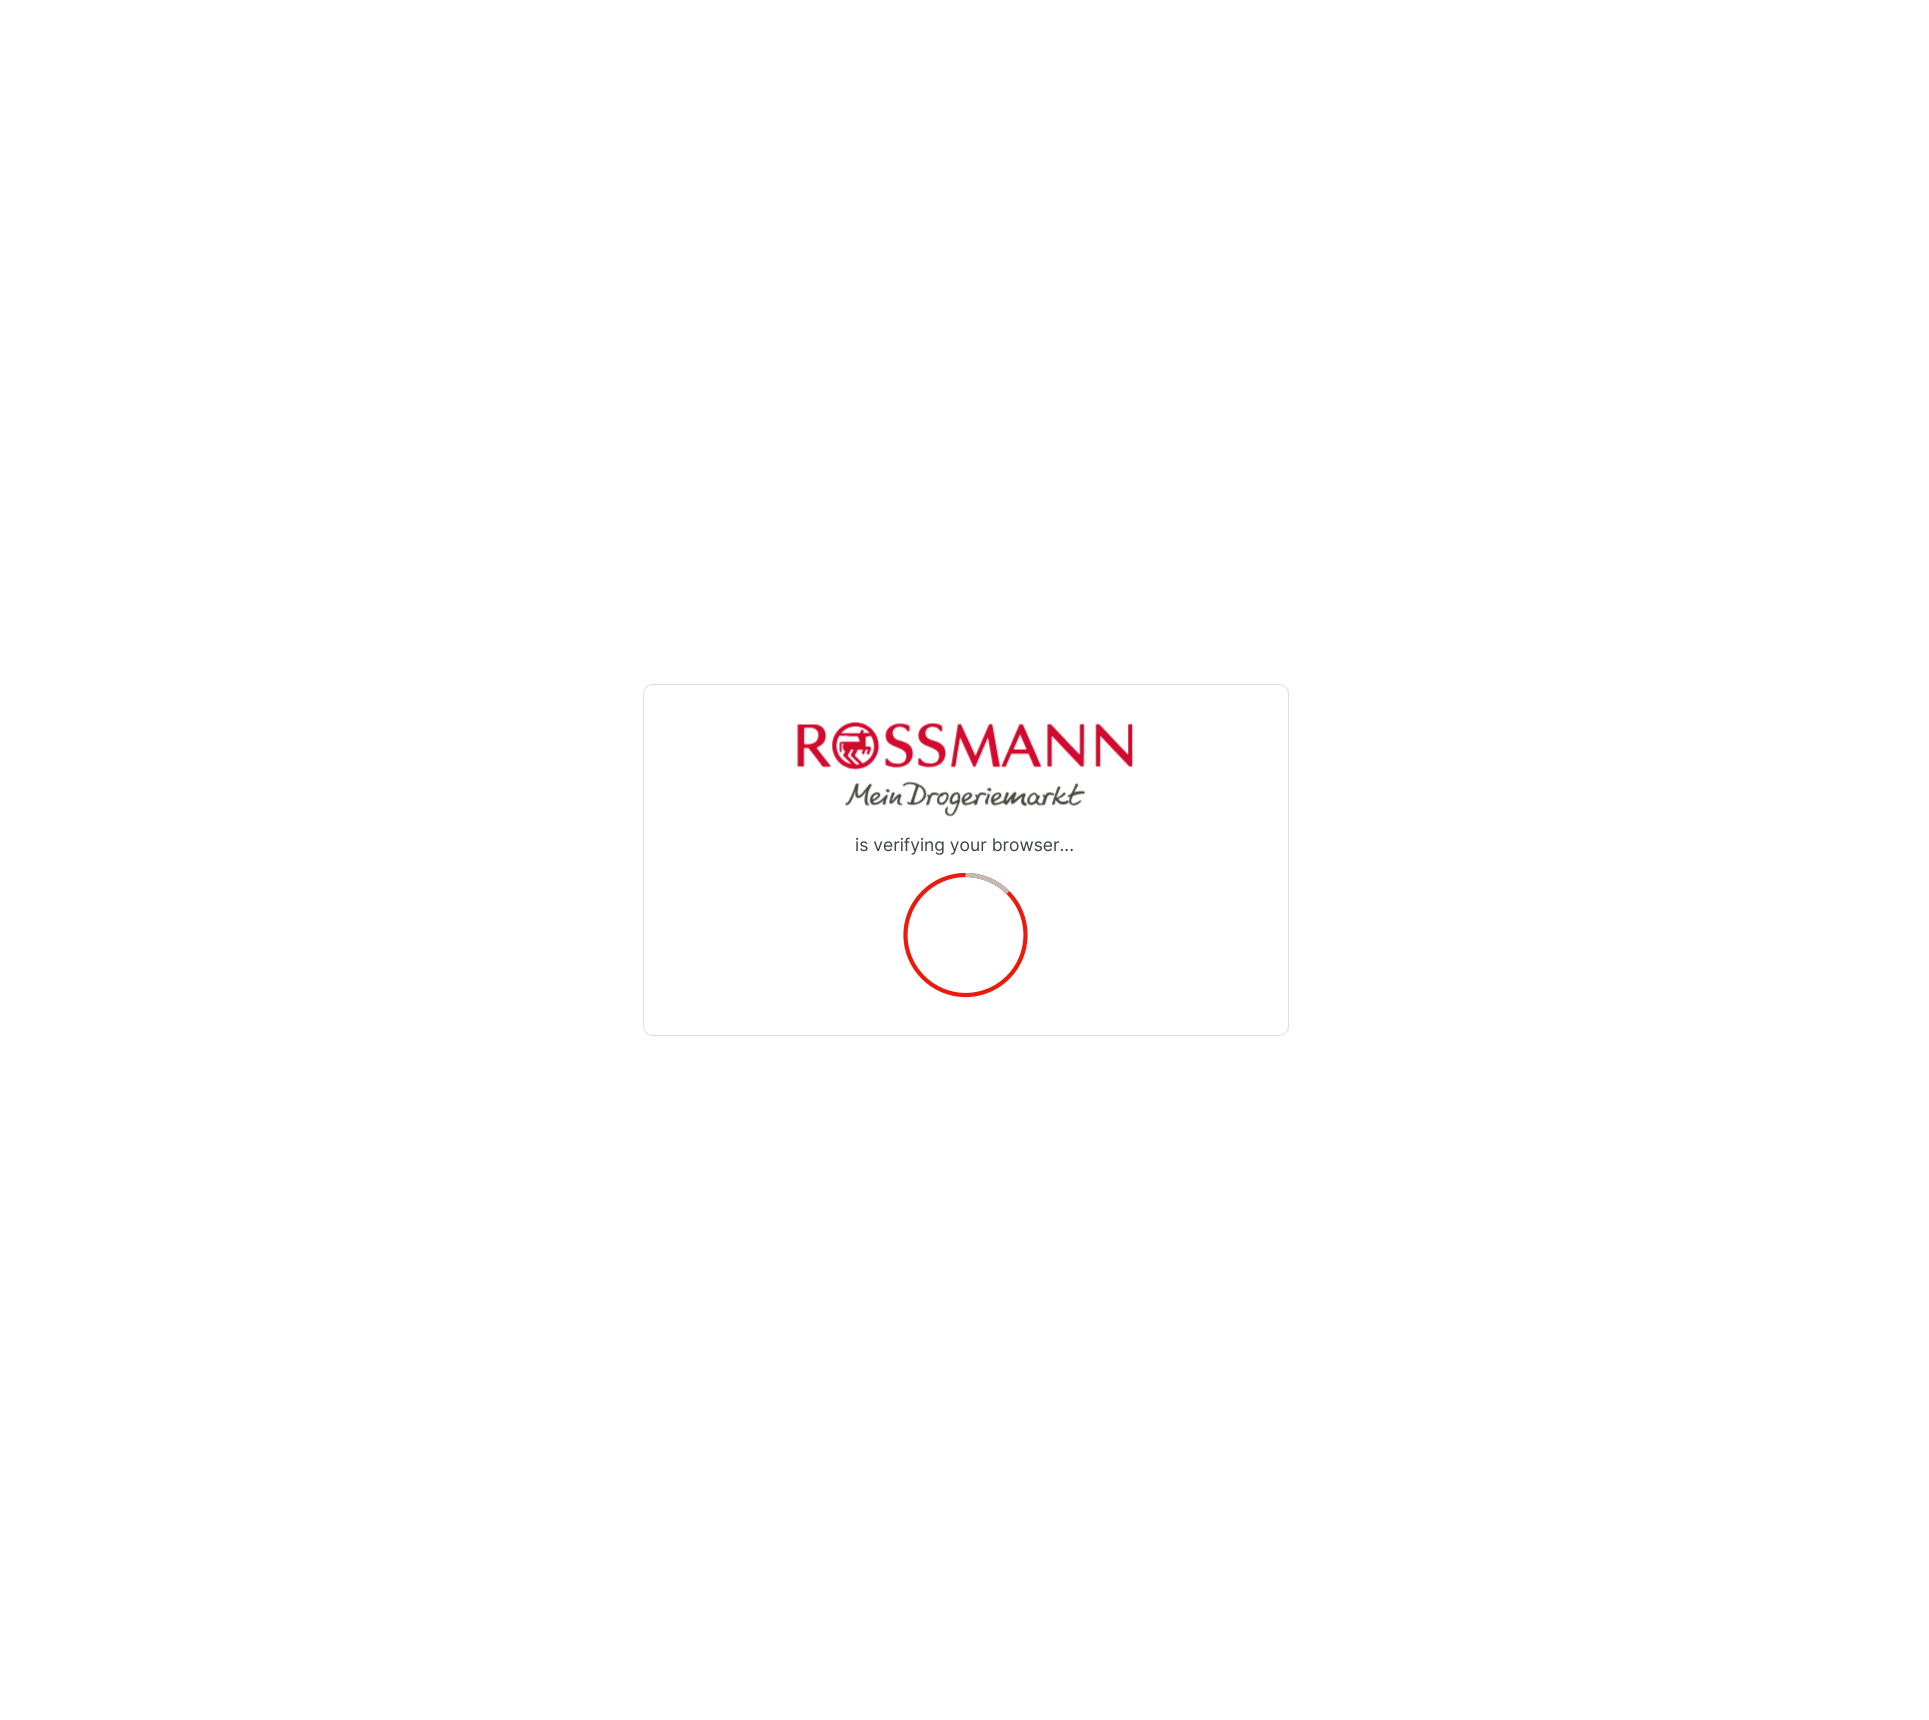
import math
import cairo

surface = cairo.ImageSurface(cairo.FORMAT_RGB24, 1929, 1720)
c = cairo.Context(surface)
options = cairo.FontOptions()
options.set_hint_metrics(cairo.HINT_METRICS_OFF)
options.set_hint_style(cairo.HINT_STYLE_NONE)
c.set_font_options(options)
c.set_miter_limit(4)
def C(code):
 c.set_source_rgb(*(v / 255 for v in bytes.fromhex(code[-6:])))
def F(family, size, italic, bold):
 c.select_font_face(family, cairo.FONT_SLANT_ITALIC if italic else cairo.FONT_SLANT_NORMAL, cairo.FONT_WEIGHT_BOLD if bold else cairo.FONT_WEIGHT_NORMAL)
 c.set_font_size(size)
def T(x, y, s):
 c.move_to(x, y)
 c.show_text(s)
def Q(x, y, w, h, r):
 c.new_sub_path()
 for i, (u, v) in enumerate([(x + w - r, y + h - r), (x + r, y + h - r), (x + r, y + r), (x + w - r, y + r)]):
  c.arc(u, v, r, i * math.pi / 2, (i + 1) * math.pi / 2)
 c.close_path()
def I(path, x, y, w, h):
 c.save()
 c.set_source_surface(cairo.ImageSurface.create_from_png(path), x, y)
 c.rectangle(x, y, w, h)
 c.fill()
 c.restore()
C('ffffff')
c.paint()
Q(643.5,684.5,645,351,9.5)
C('dce0e4')
c.set_line_width(1)
c.stroke()
I('1.png',797,722,336,95)
F('Inter',17.5,0,0)
C('3a424a')
T(855,851,'is verifying your browser...')
c.save()
c.rectangle(681,873,569,125)
c.clip()
c.new_path()
c.move_to(905.5,935)
c.curve_to(905.5,902,932.5,875,965.5,875)
c.curve_to(999,875,1025.5,902,1025.5,935)
c.curve_to(1025.5,968,999,995,965.5,995)
c.curve_to(932.5,995,905.5,968,905.5,935)
c.close_path()
C('eb1a0c')
c.set_line_width(4.2)
c.stroke()
c.restore()
c.new_path()
c.move_to(1008,892.5)
c.curve_to(997,881.5,981.5,875,965.5,875)
C('c2bab5')
c.set_line_width(4.2)
c.stroke()
surface.write_to_png('o.png')
